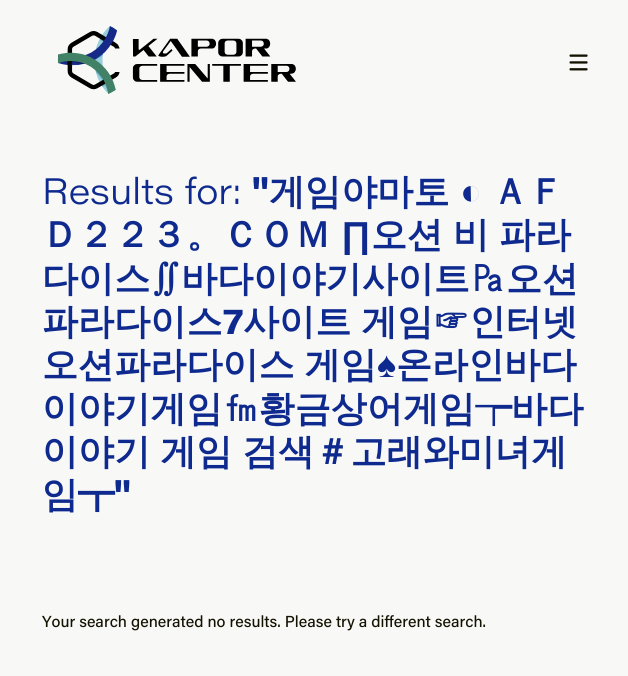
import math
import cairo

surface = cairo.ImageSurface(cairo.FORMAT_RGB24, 628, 676)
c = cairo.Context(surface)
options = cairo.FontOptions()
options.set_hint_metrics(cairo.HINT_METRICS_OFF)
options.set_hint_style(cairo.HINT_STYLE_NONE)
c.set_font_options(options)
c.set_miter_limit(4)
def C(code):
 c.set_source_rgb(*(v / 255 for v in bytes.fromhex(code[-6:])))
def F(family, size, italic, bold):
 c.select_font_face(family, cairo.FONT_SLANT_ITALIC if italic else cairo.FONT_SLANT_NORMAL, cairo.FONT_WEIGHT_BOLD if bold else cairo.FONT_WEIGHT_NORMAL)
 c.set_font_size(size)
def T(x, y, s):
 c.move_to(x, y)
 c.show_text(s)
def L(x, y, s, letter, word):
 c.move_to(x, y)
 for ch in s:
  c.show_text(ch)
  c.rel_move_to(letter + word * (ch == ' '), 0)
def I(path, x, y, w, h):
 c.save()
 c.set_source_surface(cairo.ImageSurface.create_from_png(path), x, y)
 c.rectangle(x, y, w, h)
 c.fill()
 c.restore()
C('f8f8f7')
c.paint()
I('1.png',57,26,239,68)
I('2.png',569,54,19,17)
F('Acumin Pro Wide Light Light',36.1,0,0)
C('0f2a8e')
T(42,204,'Results for:')
F('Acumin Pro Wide',36.1,0,1)
T(252,204,'"')
F('WenQuanYi Zen Hei',36.1,0,1)
T(269,204,'게임야마토')
F('Liberation Sans',36.1,0,1)
T(460,204,'◐')
F('WenQuanYi Zen Hei',36.1,0,1)
T(492,204,'ＡＦ')
T(42,247,'Ｄ２２３。ＣＯＭ')
F('Liberation Sans',36.1,0,1)
T(341,247,'∏')
F('WenQuanYi Zen Hei',36.1,0,1)
L(371,247,'오션 비 파라',0,-1)
T(42,291,'다이스∬바다이야기사이트㎩오션')
T(42,334,'파라다이스')
F('Acumin Pro Wide',36.1,0,1)
T(223,334,'7')
F('WenQuanYi Zen Hei',36.1,0,1)
L(243,334,'사이트 게임☞인터넷',0,-1)
L(42,377,'오션파라다이스 게임',0,-1)
F('Liberation Sans',36.1,0,1)
T(377,377,'♠')
F('WenQuanYi Zen Hei',36.1,0,1)
T(396,377,'온라인바다')
T(42,421,'이야기게임㎙황금상어게임┮바다')
L(42,464,'이야기 게임 검색＃고래와미녀게',0,-1)
T(42,507,'임┳')
F('Acumin Pro Wide',36.1,0,1)
T(114,507,'"')
F('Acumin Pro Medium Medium',16,0,0)
C('141301')
T(42,627,'Your search generated no results. Please try a different search.')
surface.write_to_png('o.png')
